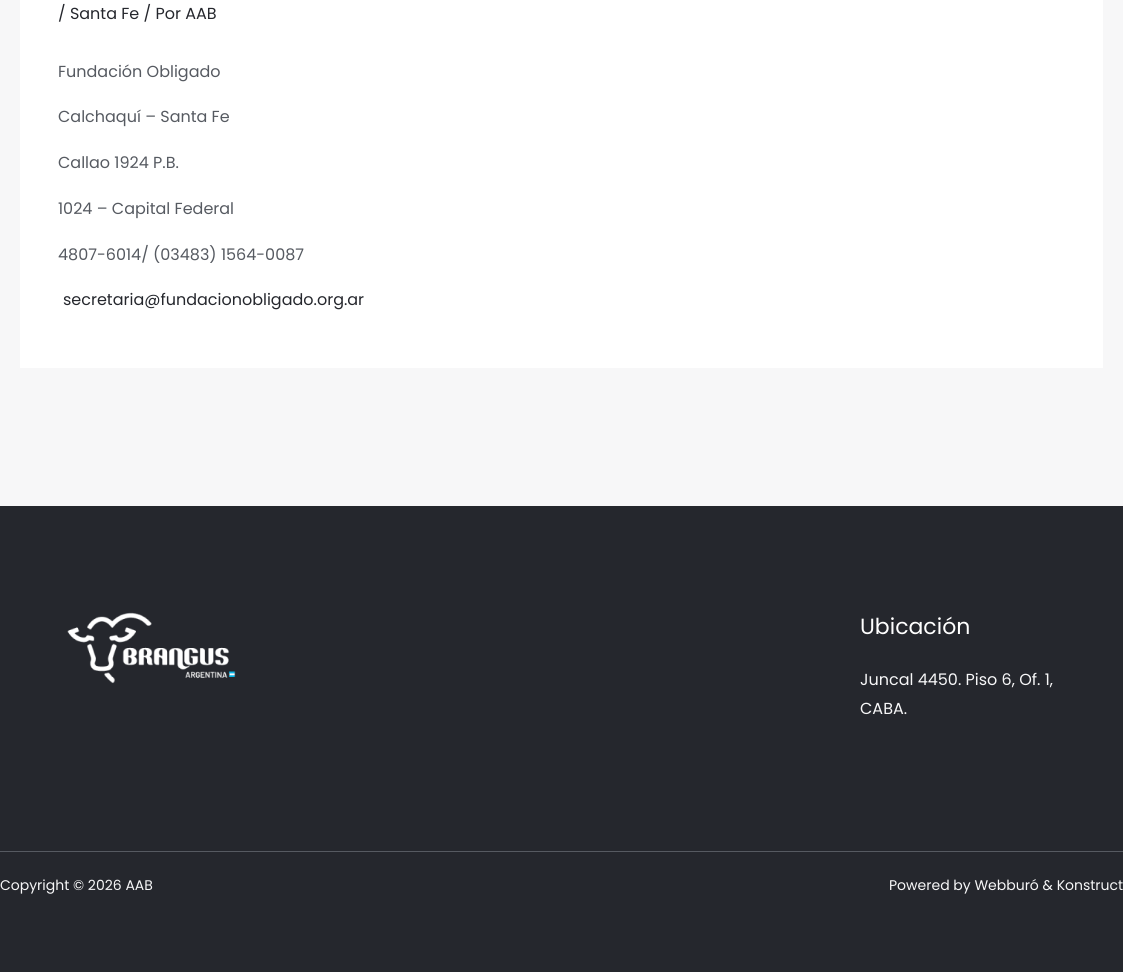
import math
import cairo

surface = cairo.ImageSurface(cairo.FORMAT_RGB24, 1123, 972)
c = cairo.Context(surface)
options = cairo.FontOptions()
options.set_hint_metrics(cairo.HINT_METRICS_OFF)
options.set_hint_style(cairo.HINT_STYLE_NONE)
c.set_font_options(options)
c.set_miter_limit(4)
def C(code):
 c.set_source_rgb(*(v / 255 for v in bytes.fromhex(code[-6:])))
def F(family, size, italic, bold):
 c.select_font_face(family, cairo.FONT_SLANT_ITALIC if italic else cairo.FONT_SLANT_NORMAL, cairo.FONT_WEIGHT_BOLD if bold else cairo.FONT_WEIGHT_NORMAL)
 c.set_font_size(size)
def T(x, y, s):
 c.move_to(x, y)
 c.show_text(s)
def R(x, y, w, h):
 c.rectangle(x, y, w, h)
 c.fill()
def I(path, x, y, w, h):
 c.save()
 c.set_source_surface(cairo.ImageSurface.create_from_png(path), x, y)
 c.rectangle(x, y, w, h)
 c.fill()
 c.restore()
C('f7f7f8')
c.paint()
C('ffffff')
R(20,0,1083,368)
F('Poppins',16,0,0)
C('25272d')
T(58,19,'/ Santa Fe / Por AAB')
C('565a61')
T(58,77,'Fundación Obligado')
T(58,122,'Calchaquí – Santa Fe')
T(58,168,'Callao 1924 P.B.')
T(58,214,'1024 – Capital Federal')
T(58,260,'4807-6014/ (03483) 1564-0087')
C('25272d')
T(63,305,'secretaria@fundacionobligado.org.ar')
R(0,506,1123,466)
I('1.png',67,612,169,72)
F('Poppins',22,0,0)
C('ffffff')
T(860,634,'Ubicación')
F('Poppins',16,0,0)
C('f7f7f8')
T(860,685,'Juncal 4450. Piso 6, Of. 1,')
T(860,714,'CABA.')
C('565a61')
R(0,851,1123,1)
F('Poppins',14,0,0)
C('f7f7f8')
T(0,890,'Copyright © 2026 AAB')
T(889,890,'Powered by Webburó & Konstruct')
surface.write_to_png('o.png')
